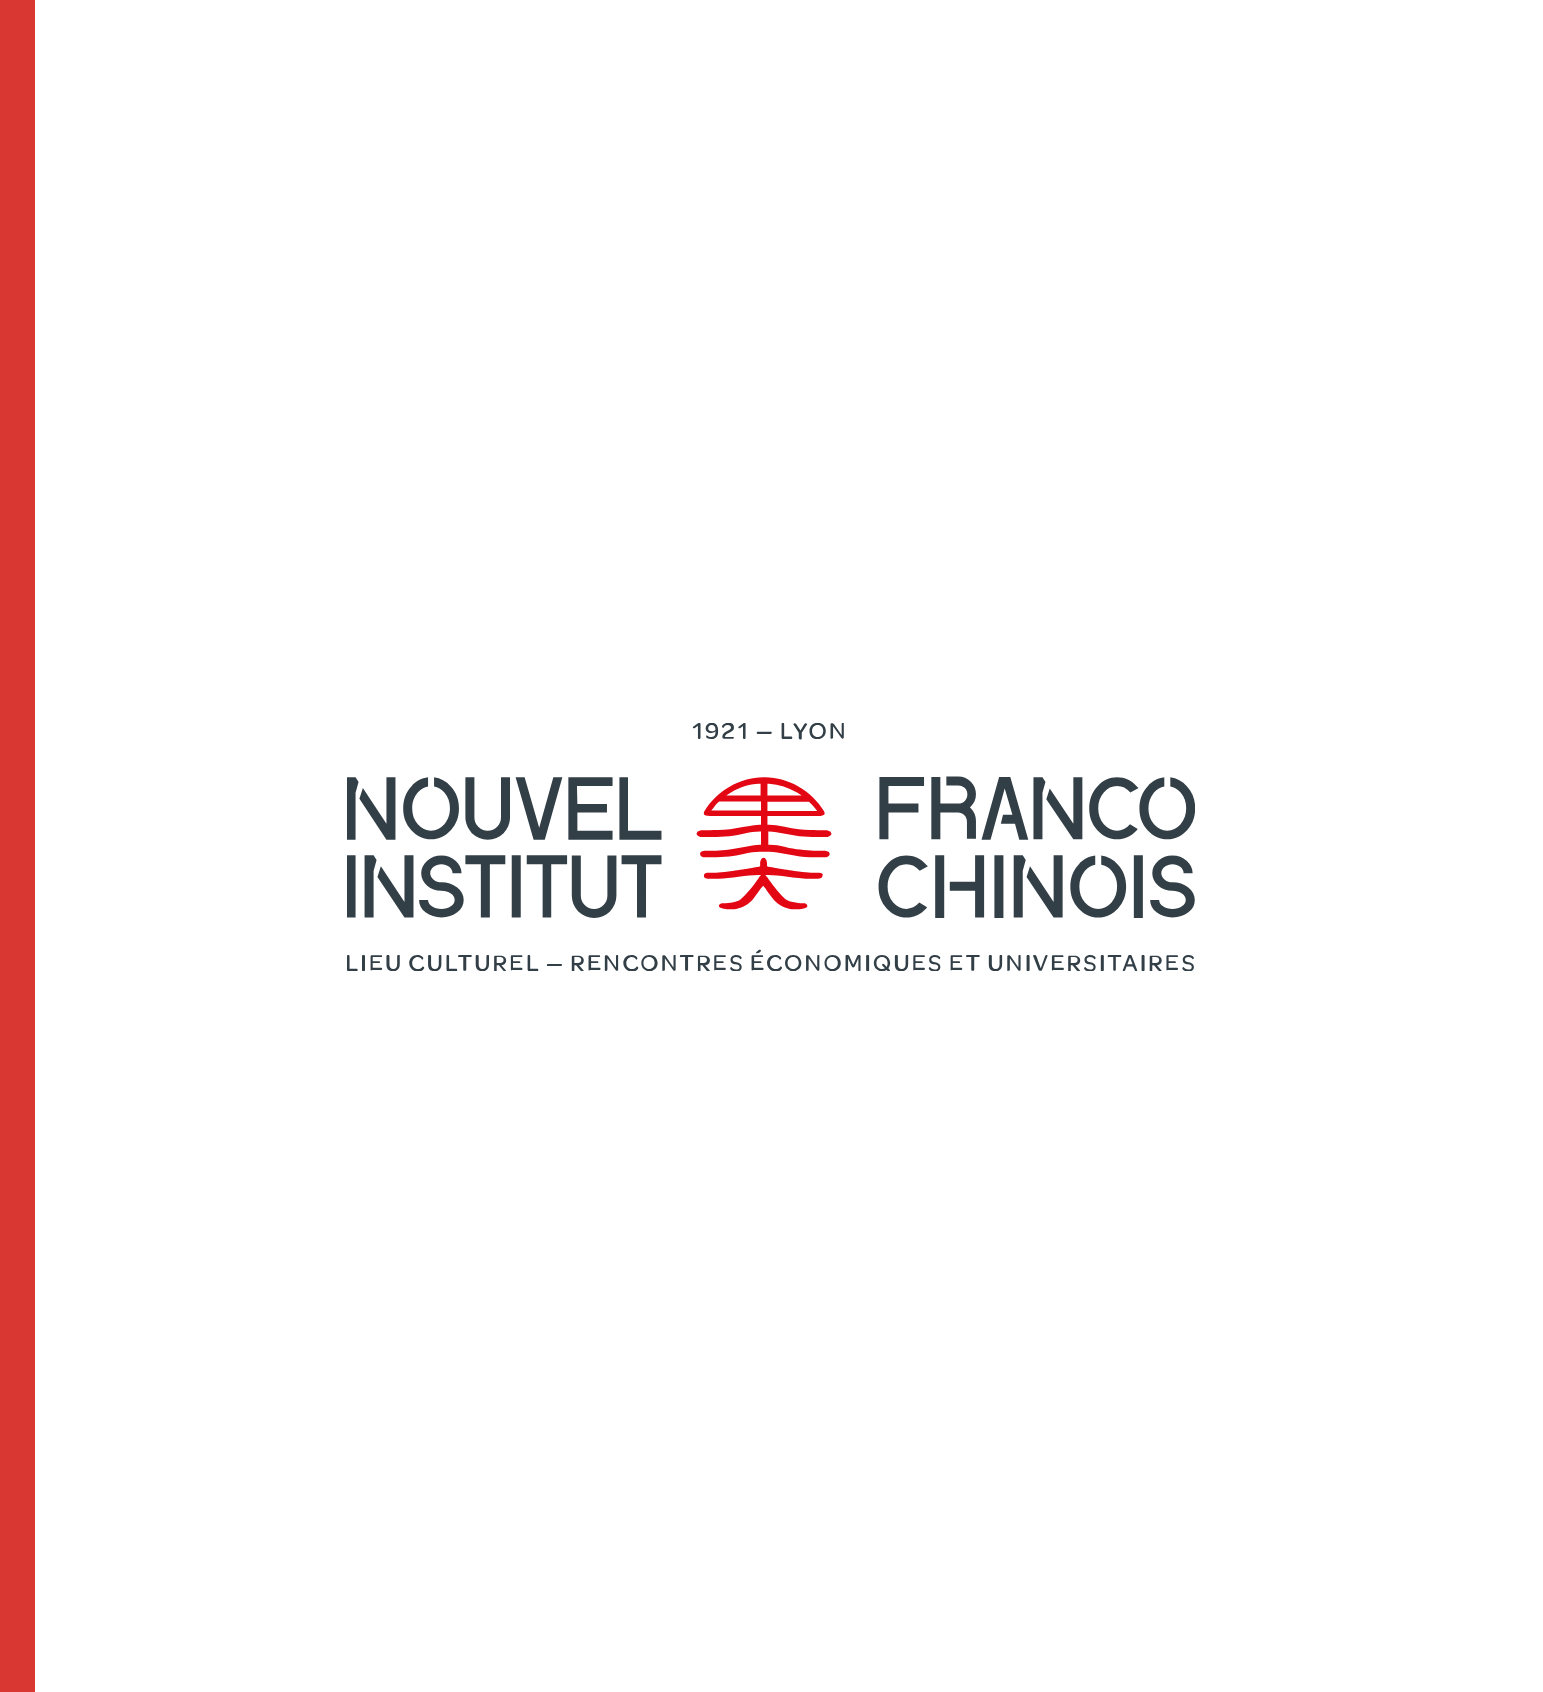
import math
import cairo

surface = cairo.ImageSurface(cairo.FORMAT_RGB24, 1543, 1692)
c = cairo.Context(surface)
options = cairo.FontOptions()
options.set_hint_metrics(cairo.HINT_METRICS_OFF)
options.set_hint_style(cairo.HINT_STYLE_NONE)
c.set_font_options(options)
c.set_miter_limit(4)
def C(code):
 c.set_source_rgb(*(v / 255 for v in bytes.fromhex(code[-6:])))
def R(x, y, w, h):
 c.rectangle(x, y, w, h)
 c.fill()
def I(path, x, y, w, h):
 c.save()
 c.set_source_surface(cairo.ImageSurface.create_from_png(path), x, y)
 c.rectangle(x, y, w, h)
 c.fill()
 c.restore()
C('ffffff')
c.paint()
C('d93832')
R(0,0,35,1692)
I('1.png',347,723,848,248)
surface.write_to_png('o.png')
